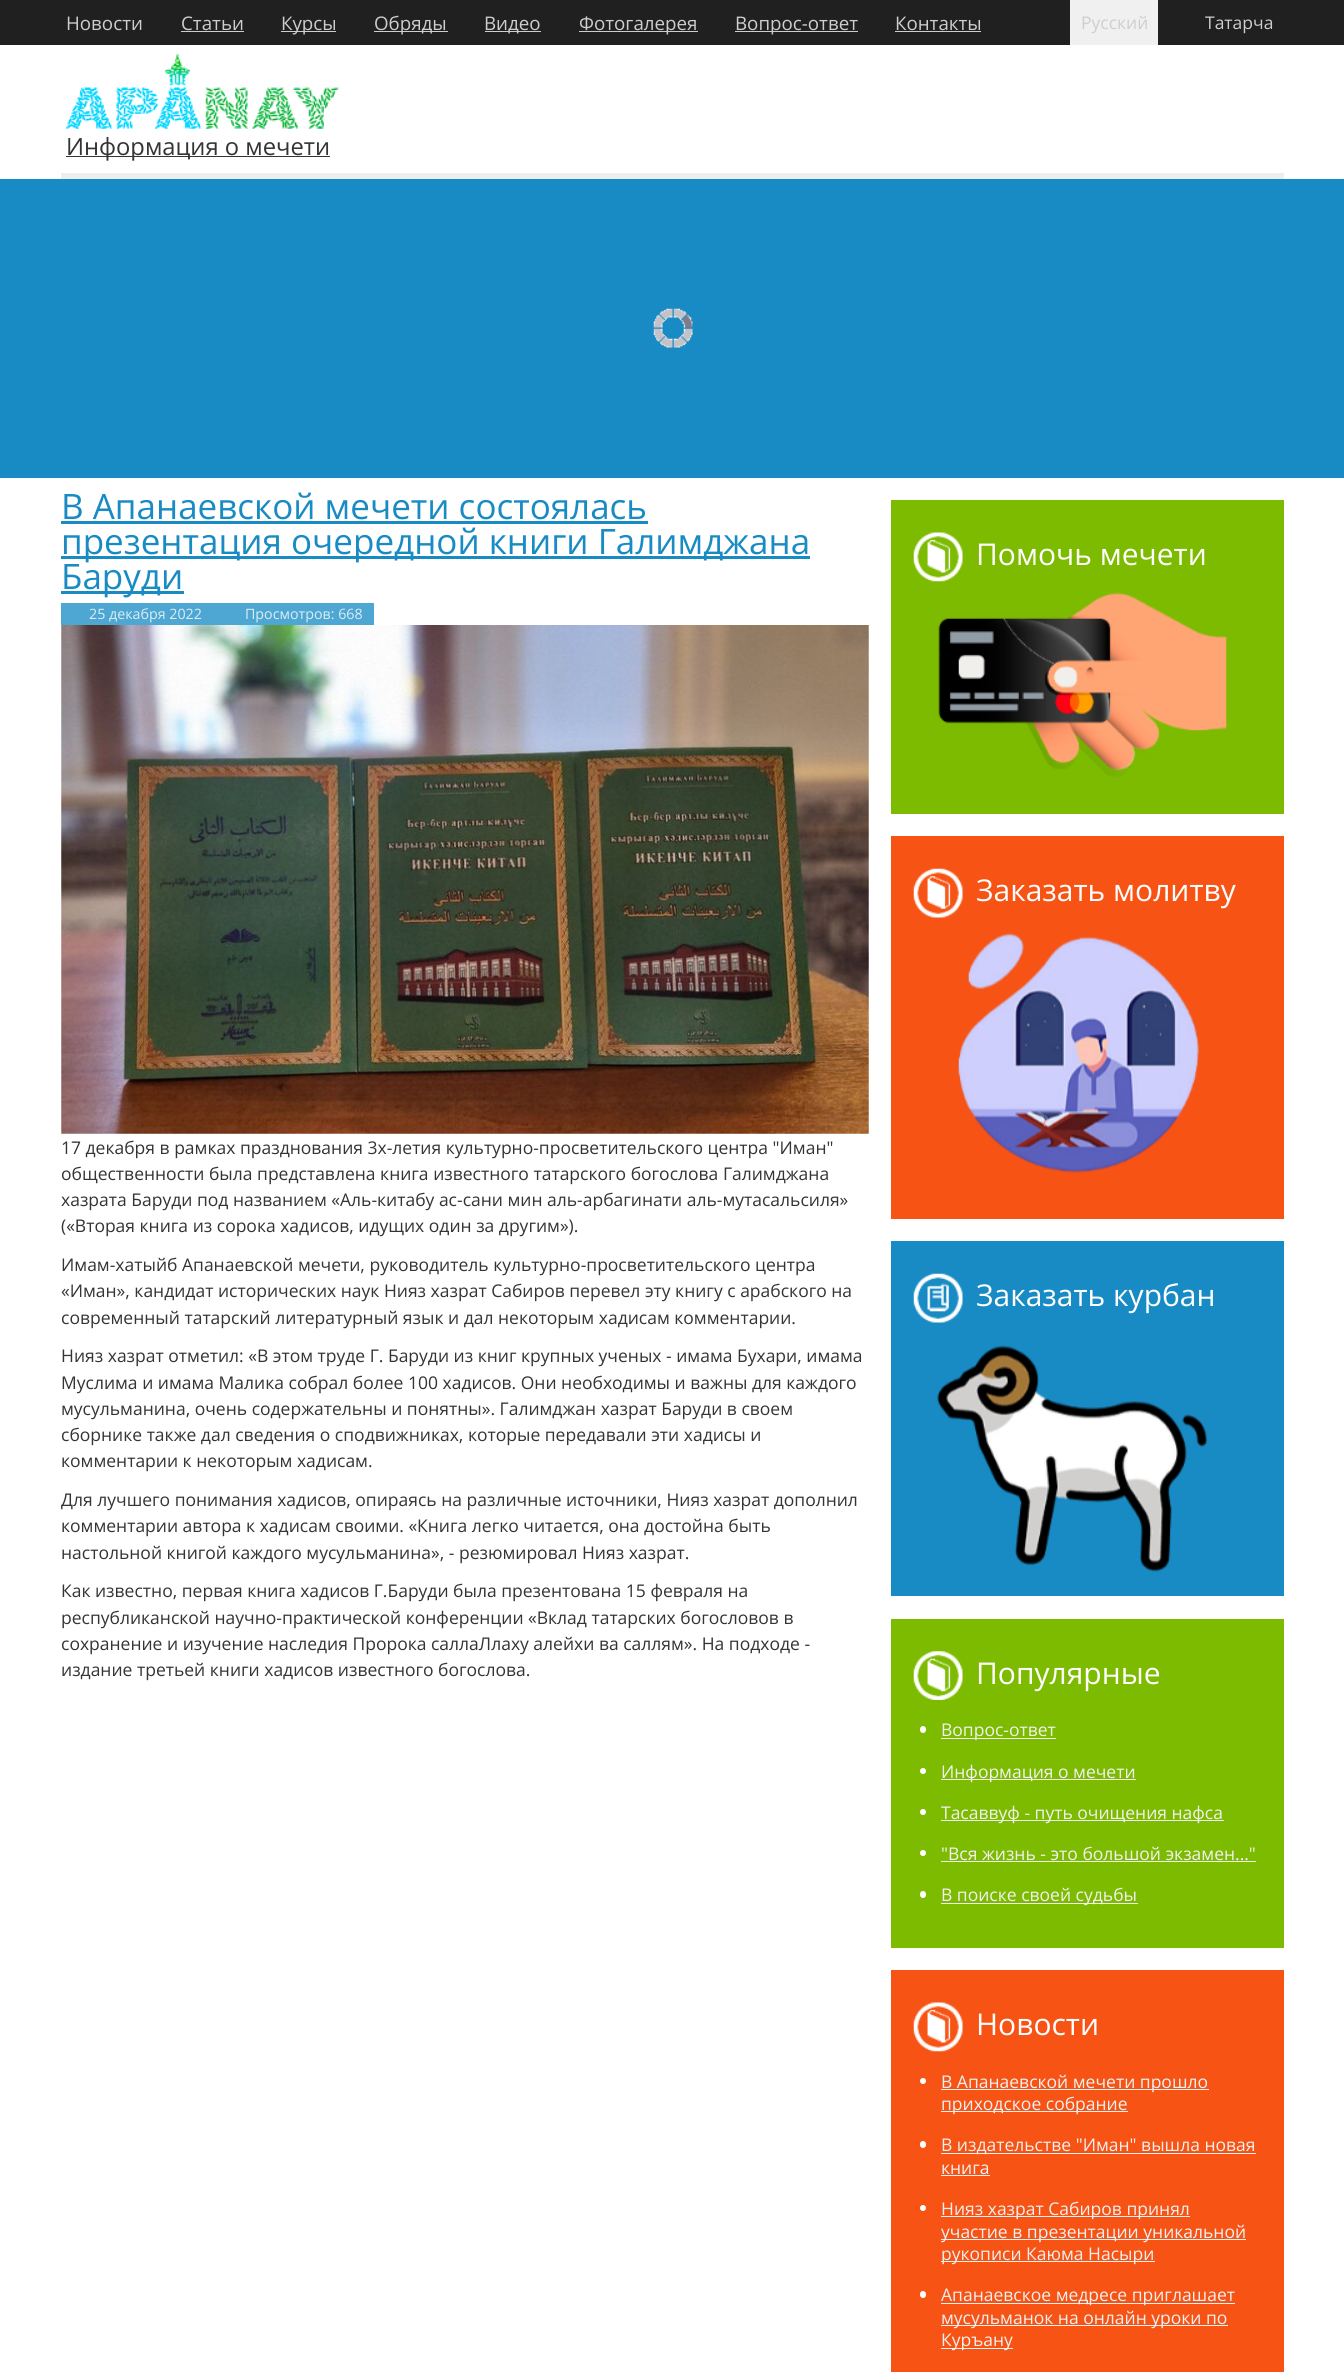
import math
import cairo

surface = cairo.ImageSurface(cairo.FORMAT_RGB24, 1344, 2372)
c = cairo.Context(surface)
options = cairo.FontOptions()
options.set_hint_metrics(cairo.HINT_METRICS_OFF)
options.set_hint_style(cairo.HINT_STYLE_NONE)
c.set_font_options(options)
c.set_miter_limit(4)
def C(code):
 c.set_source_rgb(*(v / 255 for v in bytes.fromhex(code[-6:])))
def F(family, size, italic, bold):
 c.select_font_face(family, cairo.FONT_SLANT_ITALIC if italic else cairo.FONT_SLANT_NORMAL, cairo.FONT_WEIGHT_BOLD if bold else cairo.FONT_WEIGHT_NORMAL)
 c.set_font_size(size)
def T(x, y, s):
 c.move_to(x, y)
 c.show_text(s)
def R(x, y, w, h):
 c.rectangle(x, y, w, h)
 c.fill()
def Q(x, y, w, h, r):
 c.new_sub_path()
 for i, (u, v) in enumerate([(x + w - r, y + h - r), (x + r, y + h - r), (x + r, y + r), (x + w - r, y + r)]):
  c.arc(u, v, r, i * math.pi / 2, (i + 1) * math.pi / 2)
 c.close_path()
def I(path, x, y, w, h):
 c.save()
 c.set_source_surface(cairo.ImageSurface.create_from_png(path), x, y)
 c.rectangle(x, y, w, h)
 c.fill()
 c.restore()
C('ffffff')
c.paint()
C('202020')
R(0,0,1344,45)
F('Open Sans',18.75,0,0)
C('cecece')
T(66,30,'Новости')
T(181,30,'Статьи')
R(181,31,63,1)
R(281,31,55,1)
T(281,30,'Курсы')
R(374,31,74,1)
T(374,30,'Обряды')
R(485,31,56,1)
T(484,30,'Видео')
R(579,31,119,1)
T(579,30,'Фотогалерея')
R(735,31,123,1)
T(735,30,'Вопрос-ответ')
T(895,30,'Контакты')
R(895,31,86,1)
C('f0f0f0')
R(1070,0,88,45)
F('Open Sans',17.5,0,0)
C('cecece')
T(1081,29,'Русский')
T(1205,29,'Татарча')
I('1.png',66,53,273,76)
C('eeeeee')
R(61,173,1223,6)
C('353333')
R(66,156,264,1)
F('Open Sans',23.75,0,0)
T(66,155,'Информация о мечети')
C('198bc4')
R(0,179,1344,299)
I('2.png',653,308,40,40)
F('Open Sans',35,0,0)
T(61,519,'В Апанаевской мечети состоялась')
R(61,521,587,3)
R(61,556,749,3)
T(61,554,'презентация очередной книги Галимджана')
R(61,591,123,3)
T(61,589,'Баруди')
C('4ea6d2')
R(61,603,313,22)
F('Open Sans',14.25,0,0)
C('dcedf6')
T(89,619,'25 декабря 2022')
T(245,619,'Просмотров: 668')
I('3.png',61,625,808,509)
F('Open Sans',17.5,0,0)
C('353333')
T(61,1154,'17 декабря в рамках празднования 3х-летия культурно-просветительского центра "Иман"')
T(61,1180,'общественности была представлена книга известного татарского богослова Галимджана')
T(61,1206,'хазрата Баруди под названием «Аль-китабу ас-сани мин аль-арбагинати аль-мутасальсиля»')
T(61,1232,'(«Вторая книга из сорока хадисов, идущих один за другим»).')
T(61,1271,'Имам-хатыйб Апанаевской мечети, руководитель культурно-просветительского центра')
T(61,1297,'«Иман», кандидат исторических наук Нияз хазрат Сабиров перевел эту книгу с арабского на')
T(61,1324,'современный татарский литературный язык и дал некоторым хадисам комментарии.')
T(61,1362,'Нияз хазрат отметил: «В этом труде Г. Баруди из книг крупных ученых - имама Бухари, имама')
T(61,1389,'Муслима и имама Малика собрал более 100 хадисов. Они необходимы и важны для каждого')
T(61,1415,'мусульманина, очень содержательны и понятны». Галимджан хазрат Баруди в своем')
T(61,1441,'сборнике также дал сведения о сподвижниках, которые передавали эти хадисы и')
T(61,1467,'комментарии к некоторым хадисам.')
T(61,1506,'Для лучшего понимания хадисов, опираясь на различные источники, Нияз хазрат дополнил')
T(61,1532,'комментарии автора к хадисам своими. «Книга легко читается, она достойна быть')
T(61,1559,'настольной книгой каждого мусульманина», - резюмировал Нияз хазрат.')
T(61,1597,'Как известно, первая книга хадисов Г.Баруди была презентована 15 февраля на')
T(61,1624,'республиканской научно-практической конференции «Вклад татарских богословов в')
T(61,1650,'сохранение и изучение наследия Пророка саллаЛлаху алейхи ва саллям». На подходе -')
T(61,1676,'издание третьей книги хадисов известного богослова.')
C('7cbb00')
R(891,500,393,314)
I('4.png',913,532,50,50)
F('Open Sans',30,0,0)
C('ffffff')
T(976,565,'Помочь мечети')
I('5.png',938,592,289,185)
C('f65314')
R(891,836,393,383)
I('6.png',913,868,50,50)
C('ffffff')
T(976,901,'Заказать молитву')
I('7.png',958,933,241,240)
C('198bc4')
R(891,1241,393,355)
I('8.png',913,1273,50,50)
C('ffffff')
T(976,1306,'Заказать курбан')
I('9.png',937,1345,271,227)
C('7cbb00')
R(891,1619,393,329)
I('10.png',913,1651,50,49)
C('ffffff')
T(976,1684,'Популярные')
Q(920,1726,6,7,3)
c.fill()
C('f2f1f1')
R(941,1738,115,1)
F('Open Sans',17.5,0,0)
T(941,1736,'Вопрос-ответ')
C('ffffff')
c.new_path()
c.arc(923,1771,3,0,2 * math.pi)
c.fill()
C('f2f1f1')
R(941,1779,195,1)
T(941,1778,'Информация о мечети')
C('ffffff')
c.new_path()
c.arc(923,1812,3,0,2 * math.pi)
c.fill()
C('f2f1f1')
R(941,1820,283,1)
T(941,1819,'Тасаввуф - путь очищения нафса')
C('ffffff')
c.new_path()
c.arc(923,1853,3,0,2 * math.pi)
c.fill()
C('f2f1f1')
T(941,1860,'"Вся жизнь - это большой экзамен..."')
R(941,1861,315,1)
C('ffffff')
Q(920,1891,6,7,3)
c.fill()
C('f2f1f1')
R(941,1903,197,1)
T(941,1901,'В поиске своей судьбы')
C('f65314')
R(891,1970,393,402)
I('11.png',913,2002,50,50)
F('Open Sans',30,0,0)
C('ffffff')
T(976,2035,'Новости')
c.new_path()
c.arc(923,2081,3,0,2 * math.pi)
c.fill()
C('f2f1f1')
R(941,2089,268,1)
F('Open Sans',17.5,0,0)
T(941,2088,'В Апанаевской мечети прошло')
R(941,2111,187,1)
T(941,2110,'приходское собрание')
C('ffffff')
Q(920,2141,6,7,3)
c.fill()
C('f2f1f1')
R(941,2153,315,1)
T(941,2151,'В издательстве "Иман" вышла новая')
T(941,2174,'книга')
R(941,2175,49,1)
C('ffffff')
c.new_path()
c.arc(923,2208,3,0,2 * math.pi)
c.fill()
C('f2f1f1')
R(941,2216,249,1)
T(941,2215,'Нияз хазрат Сабиров принял')
R(941,2239,305,1)
T(941,2238,'участие в презентации уникальной')
R(941,2261,214,1)
T(941,2260,'рукописи Каюма Насыри')
C('ffffff')
Q(920,2291,6,7,3)
c.fill()
C('f2f1f1')
R(941,2303,294,1)
T(941,2301,'Апанаевское медресе приглашает')
R(941,2325,287,1)
T(941,2324,'мусульманок на онлайн уроки по')
R(941,2348,72,1)
T(941,2346,'Куръану')
surface.write_to_png('o.png')
